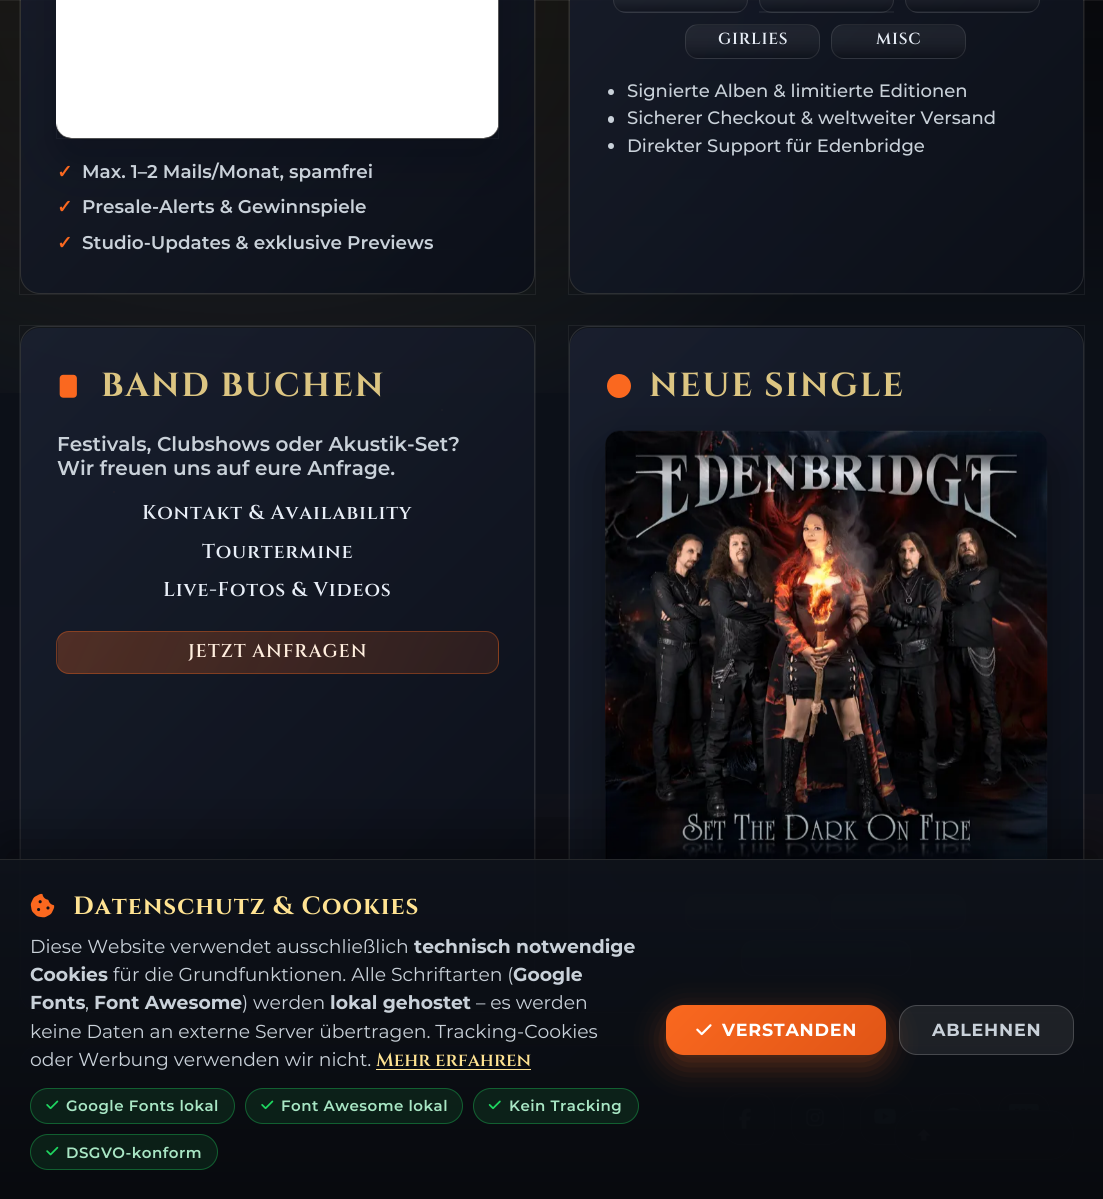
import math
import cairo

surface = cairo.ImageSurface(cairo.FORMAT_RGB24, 1103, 1199)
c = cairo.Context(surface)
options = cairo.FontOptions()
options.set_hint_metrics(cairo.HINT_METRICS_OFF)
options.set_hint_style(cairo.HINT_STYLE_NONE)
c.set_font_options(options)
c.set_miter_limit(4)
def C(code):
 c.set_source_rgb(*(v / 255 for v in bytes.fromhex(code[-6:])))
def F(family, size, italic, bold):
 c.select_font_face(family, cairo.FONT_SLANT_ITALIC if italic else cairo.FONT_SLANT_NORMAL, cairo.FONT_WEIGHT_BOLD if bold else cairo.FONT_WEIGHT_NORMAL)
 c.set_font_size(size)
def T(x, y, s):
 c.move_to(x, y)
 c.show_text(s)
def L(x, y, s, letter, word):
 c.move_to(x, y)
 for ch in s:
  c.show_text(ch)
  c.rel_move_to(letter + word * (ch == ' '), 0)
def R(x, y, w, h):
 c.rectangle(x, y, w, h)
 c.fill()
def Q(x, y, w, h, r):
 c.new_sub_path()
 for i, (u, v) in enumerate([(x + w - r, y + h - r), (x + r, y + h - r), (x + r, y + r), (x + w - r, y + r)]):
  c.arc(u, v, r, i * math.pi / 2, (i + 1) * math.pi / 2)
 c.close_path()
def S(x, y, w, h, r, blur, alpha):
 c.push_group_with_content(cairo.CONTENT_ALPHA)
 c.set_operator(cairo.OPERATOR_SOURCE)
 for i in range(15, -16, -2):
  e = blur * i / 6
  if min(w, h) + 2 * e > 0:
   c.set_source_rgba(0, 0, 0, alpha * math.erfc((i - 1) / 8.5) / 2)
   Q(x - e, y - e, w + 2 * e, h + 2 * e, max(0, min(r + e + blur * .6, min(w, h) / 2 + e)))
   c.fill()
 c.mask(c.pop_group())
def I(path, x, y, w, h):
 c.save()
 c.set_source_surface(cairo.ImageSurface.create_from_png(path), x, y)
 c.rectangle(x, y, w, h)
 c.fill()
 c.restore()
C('ffffff')
c.paint()
gradient = cairo.LinearGradient(552,0,552,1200)
gradient.add_color_stop_rgba(0,0.047,0.059,0.086,1)
gradient.add_color_stop_rgba(1,0.051,0.067,0.106,1)
c.set_source(gradient)
R(0,0,1103,1199)
gradient = cairo.LinearGradient(552,0,552,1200)
gradient.add_color_stop_rgba(0,0.012,0.012,0.012,.54)
gradient.add_color_stop_rgba(.14,0.012,0.012,0.012,.32)
gradient.add_color_stop_rgba(.28,0.012,0.012,0.012,0)
gradient.add_color_stop_rgba(.72,0.012,0.012,0.012,0)
gradient.add_color_stop_rgba(.88,0.012,0.012,0.012,.36)
gradient.add_color_stop_rgba(1,0.012,0.012,0.012,.5)
c.set_source(gradient)
R(0,0,1103,1199)
gradient = cairo.RadialGradient(0,0,0,0,0,1)
gradient.set_matrix(cairo.Matrix(1 / 993, 0, 0, 1 / 768, -1 * 938 / 993, -1 * 1200 / 768))
gradient.add_color_stop_rgba(0,0.98,0.416,0.129,.08)
gradient.add_color_stop_rgba(.74,0.98,0.416,0.129,0)
c.set_source(gradient)
R(401,794,702,405)
gradient = cairo.RadialGradient(0,0,0,0,0,1)
gradient.set_matrix(cairo.Matrix(1 / 971, 0, 0, 1 / 696, -1 * 243 / 971, -1 * 0 / 696))
gradient.add_color_stop_rgba(0,1,0.89,0.576,.1)
gradient.add_color_stop_rgba(.72,1,0.89,0.576,0)
c.set_source(gradient)
R(0,0,793,393)
gradient = cairo.RadialGradient(0,0,0,0,0,1)
gradient.set_matrix(cairo.Matrix(1 / 1159, 0, 0, 1 / 720, -1 * 552 / 1159, -1 * 1200 / 720))
gradient.add_color_stop_rgba(0,0.012,0.012,0.012,.34)
gradient.add_color_stop_rgba(.4,0.012,0.012,0.012,.18)
gradient.add_color_stop_rgba(.7,0.012,0.012,0.012,0)
c.set_source(gradient)
R(61,817,1042,382)
c.set_source_rgba(1,1,1,0.06)
R(0,0,1103,1)
c.rectangle(19.5,-.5,516,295)
c.set_line_width(1)
c.stroke()
gradient = cairo.LinearGradient(.3,-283,555,272)
gradient.add_color_stop_rgba(0,0.102,0.125,0.188,.88)
gradient.add_color_stop_rgba(1,0.043,0.059,0.094,.94)
c.set_source(gradient)
Q(21,-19,513,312,19)
c.fill()
Q(20.5,-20.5,514,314,19.5)
c.set_source_rgba(1,1,1,0.12)
c.stroke()
c.save()
Q(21,-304,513,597,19)
c.clip()
C('060a14')
S(56,-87,443,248,15,24,.38)
c.restore()
c.rectangle(568.5,-.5,516,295)
c.set_source_rgba(1,1,1,0.06)
c.stroke()
gradient = cairo.LinearGradient(549,-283,1103,272)
gradient.add_color_stop_rgba(0,0.102,0.125,0.188,.88)
gradient.add_color_stop_rgba(1,0.043,0.059,0.094,.94)
c.set_source(gradient)
Q(570,-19,513,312,19)
c.fill()
Q(569.5,-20.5,514,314,19.5)
c.set_source_rgba(1,1,1,0.12)
c.stroke()
c.save()
Q(613,-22,135,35,13)
c.clip()
gradient = cairo.LinearGradient(680,-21,680,11)
gradient.add_color_stop_rgba(0,1,1,1,.05)
gradient.add_color_stop_rgba(1,0,0,0,.16)
c.set_source(gradient)
R(613,0,135,11)
gradient = cairo.LinearGradient(680,11,680,44)
gradient.add_color_stop_rgba(0,0.125,0.141,0.188,1)
gradient.add_color_stop_rgba(1,0.067,0.082,0.122,1)
c.set_source(gradient)
R(613,11,135,2)
c.restore()
Q(613.5,-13.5,134,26,12.5)
c.set_source_rgba(1,1,1,0.1)
c.stroke()
c.save()
Q(759,-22,135,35,13)
c.clip()
gradient = cairo.LinearGradient(826,-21,826,11)
gradient.add_color_stop_rgba(0,1,1,1,.05)
gradient.add_color_stop_rgba(1,0,0,0,.16)
c.set_source(gradient)
R(759,0,135,11)
c.restore()
gradient = cairo.LinearGradient(826,11,826,44)
gradient.add_color_stop_rgba(0,1,1,1,.05)
gradient.add_color_stop_rgba(1,0,0,0,.16)
c.set_source(gradient)
R(759,11,135,2)
Q(759.5,-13.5,134,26,12.5)
c.set_source_rgba(1,1,1,0.1)
c.stroke()
c.save()
Q(905,-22,135,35,13)
c.clip()
gradient = cairo.LinearGradient(973,-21,973,11)
gradient.add_color_stop_rgba(0,1,1,1,.05)
gradient.add_color_stop_rgba(1,0,0,0,.16)
c.set_source(gradient)
R(905,0,135,11)
gradient = cairo.LinearGradient(973,11,973,44)
gradient.add_color_stop_rgba(0,0.11,0.125,0.165,1)
gradient.add_color_stop_rgba(1,0.051,0.067,0.102,1)
c.set_source(gradient)
R(905,11,135,2)
c.restore()
Q(905.5,-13.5,134,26,12.5)
c.stroke()
c.save()
Q(685,24,135,35,13)
c.clip()
gradient = cairo.LinearGradient(753,-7.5,753,25)
gradient.add_color_stop_rgba(0,0.118,0.137,0.18,1)
gradient.add_color_stop_rgba(1,0.063,0.078,0.114,1)
c.set_source(gradient)
R(685,24,135,1)
gradient = cairo.LinearGradient(753,25,753,58)
gradient.add_color_stop_rgba(0,1,1,1,.05)
gradient.add_color_stop_rgba(1,0,0,0,.16)
c.set_source(gradient)
R(685,25,135,33)
gradient = cairo.LinearGradient(753,57,753,90)
gradient.add_color_stop_rgba(0,0.118,0.133,0.176,1)
gradient.add_color_stop_rgba(1,0.059,0.075,0.114,1)
c.set_source(gradient)
R(685,58,135,1)
c.restore()
Q(685.5,24.5,134,34,12.5)
c.stroke()
F('Cinzel SemiBold',16,0,0)
C('e8eef7')
L(718,44,'GIRLIES',.8,0)
c.save()
Q(831,24,135,35,13)
c.clip()
gradient = cairo.LinearGradient(899,-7.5,899,25)
gradient.add_color_stop_rgba(0,0.11,0.129,0.169,1)
gradient.add_color_stop_rgba(1,0.055,0.071,0.106,1)
c.set_source(gradient)
R(831,24,135,1)
gradient = cairo.LinearGradient(899,25,899,58)
gradient.add_color_stop_rgba(0,1,1,1,.05)
gradient.add_color_stop_rgba(1,0,0,0,.16)
c.set_source(gradient)
R(831,25,135,33)
gradient = cairo.LinearGradient(899,57,899,90)
gradient.add_color_stop_rgba(0,0.11,0.125,0.169,1)
gradient.add_color_stop_rgba(1,0.055,0.067,0.102,1)
c.set_source(gradient)
R(831,58,135,1)
c.restore()
Q(831.5,24.5,134,34,12.5)
c.set_source_rgba(1,1,1,0.1)
c.stroke()
C('e8eef7')
L(876,44,'MISC',.8,0)
C('c9d1d9')
c.new_path()
c.arc(611,92,3,0,2 * math.pi)
c.fill()
F('Montserrat Medium',18,0,0)
T(627,97,'Signierte Alben & limitierte Editionen')
Q(608,116,6,7,3)
c.fill()
T(627,124,'Sicherer Checkout & weltweiter Versand')
c.new_path()
c.arc(611,146,3,0,2 * math.pi)
c.fill()
T(627,152,'Direkter Support für Edenbridge')
C('0b0b0d')
Q(56,-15,443,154,15)
c.fill()
c.rectangle(56.5,-.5,442,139)
c.set_source_rgba(1,1,1,0.04)
c.stroke()
I('1.png',56,0,443,139)
F('DejaVu Sans',18.4,0,1)
C('fa681f')
T(57,178,'✓')
F('Montserrat SemiBold',18.4,0,0)
C('c9d1d9')
T(82,178,'Max. 1–2 Mails/Monat, spamfrei')
F('DejaVu Sans',18.4,0,1)
C('fa681f')
T(57,213,'✓')
F('Montserrat SemiBold',18.4,0,0)
C('c9d1d9')
T(82,213,'Presale-Alerts & Gewinnspiele')
F('DejaVu Sans',18.4,0,1)
C('fa681f')
T(57,249,'✓')
F('Montserrat SemiBold',18.4,0,0)
C('c9d1d9')
T(82,249,'Studio-Updates & exklusive Previews')
c.rectangle(19.5,325.5,516,688)
c.set_source_rgba(1,1,1,0.06)
c.stroke()
gradient = cairo.LinearGradient(-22,370,577,968)
gradient.add_color_stop_rgba(0,0.102,0.125,0.188,.88)
gradient.add_color_stop_rgba(1,0.043,0.059,0.094,.94)
c.set_source(gradient)
Q(21,328,513,683,19)
c.fill()
Q(20.5,326.5,514,686,19.5)
c.set_source_rgba(1,1,1,0.12)
c.stroke()
I('2.png',59,374,18,24)
F('Cinzel',33.25,0,1)
C('dcc582')
L(101,396,'BAND BUCHEN',1.75,0)
gradient = cairo.RadialGradient(442,410,0,442,410,2)
gradient.add_color_stop_rgba(0,1,0.89,0.573,.05)
gradient.add_color_stop_rgba(.65,1,0.89,0.573,0)
c.set_source(gradient)
R(441,409,2,2)
gradient = cairo.RadialGradient(114,492,0,114,492,2.5)
gradient.add_color_stop_rgba(0,0.98,0.408,0.122,.05)
gradient.add_color_stop_rgba(.65,0.98,0.408,0.122,0)
c.set_source(gradient)
R(113,491,2,2)
F('Montserrat SemiBold',20,0,0)
C('c9d1d9')
T(57,451,'Festivals, Clubshows oder Akustik-Set?')
T(57,475,'Wir freuen uns auf eure Anfrage.')
F('Cinzel SemiBold',20,0,0)
C('e8eef7')
L(142,519,'Kontakt & Availability',.8,0)
L(202,558,'Tourtermine',.8,0)
L(163,596,'Live-Fotos & Videos',.8,0)
c.save()
Q(56,631,443,43,13)
c.clip()
gradient = cairo.LinearGradient(89,525,466,700)
gradient.add_color_stop_rgba(0,0.98,0.408,0.122,.26)
gradient.add_color_stop_rgba(1,0.98,0.408,0.122,.12)
c.set_source(gradient)
R(58,631,440,2)
gradient = cairo.LinearGradient(-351,565,26,740)
gradient.add_color_stop_rgba(0,0.314,0.18,0.145,1)
gradient.add_color_stop_rgba(1,0.188,0.137,0.149,1)
c.set_source(gradient)
R(56,633,2,40)
gradient = cairo.LinearGradient(89,565,466,740)
gradient.add_color_stop_rgba(0,0.98,0.408,0.122,.26)
gradient.add_color_stop_rgba(1,0.98,0.408,0.122,.12)
c.set_source(gradient)
R(58,633,440,40)
gradient = cairo.LinearGradient(529,565,906,740)
gradient.add_color_stop_rgba(0,0.302,0.165,0.122,1)
gradient.add_color_stop_rgba(1,0.173,0.118,0.122,1)
c.set_source(gradient)
R(498,633,1,40)
gradient = cairo.LinearGradient(89,605,466,780)
gradient.add_color_stop_rgba(0,0.98,0.408,0.122,.26)
gradient.add_color_stop_rgba(1,0.98,0.408,0.122,.12)
c.set_source(gradient)
R(58,673,440,1)
c.restore()
Q(56.5,631.5,442,42,12.5)
c.set_source_rgba(0.98,0.408,0.122,0.34)
c.stroke()
F('Cinzel SemiBold',18.4,0,0)
C('ffeede')
L(188,657,'JETZT ANFRAGEN',.9,0)
c.rectangle(568.5,325.5,516,688)
c.set_source_rgba(1,1,1,0.06)
c.stroke()
gradient = cairo.LinearGradient(527,370,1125,968)
gradient.add_color_stop_rgba(0,0.102,0.125,0.188,.88)
gradient.add_color_stop_rgba(1,0.043,0.059,0.094,.94)
c.set_source(gradient)
Q(570,328,513,683,19)
c.fill()
Q(569.5,326.5,514,686,19.5)
c.set_source_rgba(1,1,1,0.12)
c.stroke()
c.save()
Q(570,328,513,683,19)
c.clip()
C('000000')
S(605,455,443,441,15,26,.45)
c.restore()
C('fa681f')
c.arc(619,386,12,0,2 * math.pi)
c.fill()
F('Cinzel',33.25,0,1)
C('dcc582')
L(649,396,'NEUE SINGLE',1.75,0)
I('3.png',605,430,443,443)
gradient = cairo.RadialGradient(990,410,0,990,410,2)
gradient.add_color_stop_rgba(0,1,0.89,0.573,.05)
gradient.add_color_stop_rgba(.65,1,0.89,0.573,0)
c.set_source(gradient)
R(989,409,2,2)
gradient = cairo.RadialGradient(662,492,0,662,492,2.5)
gradient.add_color_stop_rgba(0,0.98,0.408,0.122,.05)
gradient.add_color_stop_rgba(.65,0.98,0.408,0.122,0)
c.set_source(gradient)
R(661,491,2,2)
c.save()
Q(685,894,135,36,13)
c.clip()
gradient = cairo.LinearGradient(753,861,753,895)
gradient.add_color_stop_rgba(0,0.098,0.11,0.141,1)
gradient.add_color_stop_rgba(1,0.043,0.051,0.082,1)
c.set_source(gradient)
R(685,894,135,1)
gradient = cairo.LinearGradient(753,895,753,929)
gradient.add_color_stop_rgba(0,1,1,1,.05)
gradient.add_color_stop_rgba(1,0,0,0,.16)
c.set_source(gradient)
R(685,895,135,34)
gradient = cairo.LinearGradient(753,929,753,963)
gradient.add_color_stop_rgba(0,0.106,0.122,0.161,1)
gradient.add_color_stop_rgba(1,0.051,0.063,0.098,1)
c.set_source(gradient)
R(685,929,135,1)
c.restore()
Q(685.5,894.5,134,35,12.5)
c.set_source_rgba(1,1,1,0.1)
c.stroke()
c.save()
Q(831,894,135,36,13)
c.clip()
gradient = cairo.LinearGradient(899,861,899,895)
gradient.add_color_stop_rgba(0,0.094,0.106,0.133,1)
gradient.add_color_stop_rgba(1,0.039,0.047,0.075,1)
c.set_source(gradient)
R(831,894,135,1)
gradient = cairo.LinearGradient(899,895,899,929)
gradient.add_color_stop_rgba(0,1,1,1,.05)
gradient.add_color_stop_rgba(1,0,0,0,.16)
c.set_source(gradient)
R(831,895,135,34)
gradient = cairo.LinearGradient(899,929,899,963)
gradient.add_color_stop_rgba(0,0.102,0.118,0.153,1)
gradient.add_color_stop_rgba(1,0.047,0.059,0.09,1)
c.set_source(gradient)
R(831,929,135,1)
c.restore()
Q(831.5,894.5,134,35,12.5)
c.stroke()
c.save()
Q(741,940,170,36,13)
c.clip()
gradient = cairo.LinearGradient(826,908,826,941)
gradient.add_color_stop_rgba(0,0.106,0.122,0.157,1)
gradient.add_color_stop_rgba(1,0.051,0.063,0.094,1)
c.set_source(gradient)
R(741,940,170,1)
gradient = cairo.LinearGradient(826,941,826,975)
gradient.add_color_stop_rgba(0,1,1,1,.05)
gradient.add_color_stop_rgba(1,0,0,0,.16)
c.set_source(gradient)
R(741,941,170,34)
c.restore()
gradient = cairo.LinearGradient(826,975,826,1009)
gradient.add_color_stop_rgba(0,1,1,1,.05)
gradient.add_color_stop_rgba(1,0,0,0,.16)
c.set_source(gradient)
R(750,975,152,1)
Q(741.5,940.5,169,35,12.5)
c.set_source_rgba(1,1,1,0.1)
c.stroke()
gradient = cairo.LinearGradient(250,817,853,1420)
gradient.add_color_stop_rgba(0,0.094,0.118,0.173,.85)
gradient.add_color_stop_rgba(1,0.039,0.055,0.086,.9)
c.set_source(gradient)
Q(21,1046,1062,145,16)
c.fill()
Q(20.5,1045.5,1063,147,17.5)
c.set_source_rgba(1,1,1,0.08)
c.stroke()
c.save()
Q(860,1093,53,52,18)
c.clip()
gradient = cairo.LinearGradient(886,1044,886,1094)
gradient.add_color_stop_rgba(0,0.102,0.114,0.145,1)
gradient.add_color_stop_rgba(1,0.043,0.055,0.082,1)
c.set_source(gradient)
R(872,1093,29,1)
gradient = cairo.LinearGradient(886,1094,886,1144)
gradient.add_color_stop_rgba(0,0.102,0.114,0.145,1)
gradient.add_color_stop_rgba(1,0.043,0.055,0.082,1)
c.set_source(gradient)
R(860,1094,53,50)
gradient = cairo.LinearGradient(886,1144,886,1194)
gradient.add_color_stop_rgba(0,0.098,0.11,0.141,1)
gradient.add_color_stop_rgba(1,0.043,0.051,0.078,1)
c.set_source(gradient)
R(872,1144,25,1)
c.restore()
Q(860.5,1093.5,52,51,17.5)
c.set_source_rgba(1,1,1,0.16)
c.stroke()
I('7.png',874,1108,22,16)
c.save()
Q(929,1093,52,52,18)
c.clip()
gradient = cairo.LinearGradient(955,1044,955,1094)
gradient.add_color_stop_rgba(0,0.098,0.11,0.141,1)
gradient.add_color_stop_rgba(1,0.039,0.051,0.078,1)
c.set_source(gradient)
R(941,1093,28,1)
gradient = cairo.LinearGradient(955,1094,955,1144)
gradient.add_color_stop_rgba(0,0.098,0.11,0.141,1)
gradient.add_color_stop_rgba(1,0.043,0.051,0.078,1)
c.set_source(gradient)
R(929,1094,52,16)
c.restore()
Q(929.5,1093.5,51,51,17.5)
c.stroke()
I('8.png',947,1107,13,3)
c.save()
Q(998,1093,52,52,18)
c.clip()
gradient = cairo.LinearGradient(1024,1044,1024,1094)
gradient.add_color_stop_rgba(0,0.098,0.106,0.137,1)
gradient.add_color_stop_rgba(1,0.039,0.047,0.075,1)
c.set_source(gradient)
R(1010,1093,28,1)
gradient = cairo.LinearGradient(1024,1094,1024,1144)
gradient.add_color_stop_rgba(0,0.094,0.106,0.137,1)
gradient.add_color_stop_rgba(1,0.039,0.051,0.075,1)
c.set_source(gradient)
R(998,1094,52,17)
c.restore()
Q(998.5,1093.5,51,51,17.5)
c.stroke()
I('9.png',1009,1104,30,6)
C('000000')
S(894,1123,180,50,25,14,.26)
c.save()
Q(894,1110,180,50,25)
c.clip()
gradient = cairo.LinearGradient(984,1064,984,1111)
gradient.add_color_stop_rgba(0,0.071,0.094,0.149,1)
gradient.add_color_stop_rgba(1,0.055,0.078,0.129,1)
c.set_source(gradient)
R(912,1110,144,1)
gradient = cairo.LinearGradient(984,1111,984,1159)
gradient.add_color_stop_rgba(0,0.071,0.094,0.149,1)
gradient.add_color_stop_rgba(1,0.055,0.078,0.129,1)
c.set_source(gradient)
R(894,1111,180,48)
gradient = cairo.LinearGradient(984,1159,984,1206)
gradient.add_color_stop_rgba(0,0.071,0.094,0.149,1)
gradient.add_color_stop_rgba(1,0.055,0.078,0.129,1)
c.set_source(gradient)
R(912,1159,144,1)
c.restore()
c.rectangle(895.5,1111.5,177,47)
c.set_source_rgba(1,1,1,0.03)
c.stroke()
Q(894.5,1110.5,179,49,24.5)
c.set_source_rgba(1,1,1,0.14)
c.stroke()
I('4.png',917,1129,14,12)
c.save()
Q(723,1093,52,52,18)
c.clip()
gradient = cairo.LinearGradient(749,1044,749,1094)
gradient.add_color_stop_rgba(0,0.102,0.118,0.149,1)
gradient.add_color_stop_rgba(1,0.047,0.059,0.086,1)
c.set_source(gradient)
R(735,1093,28,1)
gradient = cairo.LinearGradient(749,1094,749,1144)
gradient.add_color_stop_rgba(0,0.106,0.118,0.153,1)
gradient.add_color_stop_rgba(1,0.047,0.059,0.086,1)
c.set_source(gradient)
R(723,1094,52,50)
gradient = cairo.LinearGradient(749,1144,749,1194)
gradient.add_color_stop_rgba(0,0.106,0.118,0.153,1)
gradient.add_color_stop_rgba(1,0.047,0.059,0.086,1)
c.set_source(gradient)
R(735,1144,28,1)
c.restore()
Q(723.5,1093.5,51,51,17.5)
c.set_source_rgba(1,1,1,0.16)
c.stroke()
I('5.png',739,1108,12,21)
c.save()
Q(791,1093,53,52,18)
c.clip()
gradient = cairo.LinearGradient(818,1044,818,1094)
gradient.add_color_stop_rgba(0,0.102,0.118,0.145,1)
gradient.add_color_stop_rgba(1,0.047,0.059,0.082,1)
c.set_source(gradient)
R(803,1093,29,1)
gradient = cairo.LinearGradient(818,1094,818,1144)
gradient.add_color_stop_rgba(0,0.102,0.114,0.149,1)
gradient.add_color_stop_rgba(1,0.043,0.055,0.082,1)
c.set_source(gradient)
R(791,1094,53,50)
gradient = cairo.LinearGradient(818,1144,818,1194)
gradient.add_color_stop_rgba(0,0.102,0.114,0.145,1)
gradient.add_color_stop_rgba(1,0.043,0.055,0.082,1)
c.set_source(gradient)
R(803,1144,29,1)
c.restore()
Q(791.5,1093.5,52,51,17.5)
c.stroke()
I('6.png',806,1108,18,19)
c.save()
c.rectangle(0,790,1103,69)
c.clip()
C('000000')
S(0,844,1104,341,0,30,.55)
c.restore()
gradient = cairo.LinearGradient(552,860,552,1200)
gradient.add_color_stop_rgba(0,0.055,0.071,0.102,.98)
gradient.add_color_stop_rgba(1,0.031,0.039,0.055,.99)
c.set_source(gradient)
R(0,860,1103,339)
C('26282b')
R(0,859,1103,1)
I('10.png',30,893,25,25)
F('Cinzel',25,0,1)
C('ffe392')
L(73,914,'Datenschutz & Cookies',1,0)
F('Montserrat',18.75,0,0)
C('c9d1d9')
T(30,953,'Diese Website verwendet ausschließlich')
F('Montserrat',18.75,0,1)
T(414,953,'technisch notwendige')
T(30,981,'Cookies')
F('Montserrat',18.75,0,0)
T(113,981,'für die Grundfunktionen. Alle Schriftarten (')
F('Montserrat',18.75,0,1)
T(513,981,'Google')
T(30,1009,'Fonts')
F('Montserrat',18.75,0,0)
T(85,1009,',')
F('Montserrat',18.75,0,1)
T(94,1009,'Font Awesome')
F('Montserrat',18.75,0,0)
T(242,1009,') werden')
F('Montserrat',18.75,0,1)
T(330,1009,'lokal gehostet')
F('Montserrat',18.75,0,0)
T(476,1009,'– es werden')
T(30,1038,'keine Daten an externe Server übertragen. Tracking-Cookies')
T(30,1066,'oder Werbung verwenden wir nicht.')
F('Cinzel SemiBold',18.75,0,0)
C('ffe392')
T(376,1066,'Mehr erfahren')
R(376,1069,155,1)
c.set_source_rgba(0.118,0.843,0.376,0.1)
Q(30,1088,205,36,18)
c.fill()
Q(30.5,1088.5,204,35,17.5)
c.set_source_rgba(0.118,0.843,0.376,0.35)
c.stroke()
I('11.png',46,1100,13,10)
F('Montserrat SemiBold',15,0,0)
C('a8e6c4')
L(66,1111,'Google Fonts lokal',.5,0)
c.set_source_rgba(0.118,0.843,0.376,0.1)
Q(245,1088,218,36,18)
c.fill()
Q(245.5,1088.5,217,35,17.5)
c.set_source_rgba(0.118,0.843,0.376,0.35)
c.stroke()
I('12.png',261,1100,13,10)
C('a8e6c4')
L(281,1111,'Font Awesome lokal',.5,0)
C('0c2119')
Q(473,1088,166,36,18)
c.fill()
Q(473.5,1088.5,165,35,17.5)
c.set_source_rgba(0.118,0.843,0.376,0.35)
c.stroke()
I('13.png',488,1100,13,10)
C('a8e6c4')
L(509,1111,'Kein Tracking',.5,0)
c.set_source_rgba(0.118,0.843,0.376,0.1)
Q(30,1134,188,36,18)
c.fill()
Q(30.5,1134.5,187,35,17.5)
c.set_source_rgba(0.118,0.843,0.376,0.35)
c.stroke()
I('14.png',46,1146,13,10)
C('a8e6c4')
L(66,1158,'DSGVO-konform',.5,0)
C('fa681f')
S(666,1015,220,50,18,15,.35)
gradient = cairo.LinearGradient(709,963,844,1098)
gradient.add_color_stop_rgba(0,0.98,0.408,0.122,1)
gradient.add_color_stop_rgba(1,0.878,0.333,0.086,1)
c.set_source(gradient)
Q(666,1005,220,50,18)
c.fill()
I('15.png',696,1024,16,12)
F('Montserrat',17.5,0,1)
C('ffffff')
L(722,1036,'VERSTANDEN',.75,0)
c.set_source_rgba(1,1,1,0.08)
Q(899,1005,175,50,18)
c.fill()
Q(899.5,1005.5,174,49,17.5)
c.set_source_rgba(1,1,1,0.18)
c.stroke()
C('c9d1d9')
L(932,1036,'ABLEHNEN',.75,0)
surface.write_to_png('o.png')
